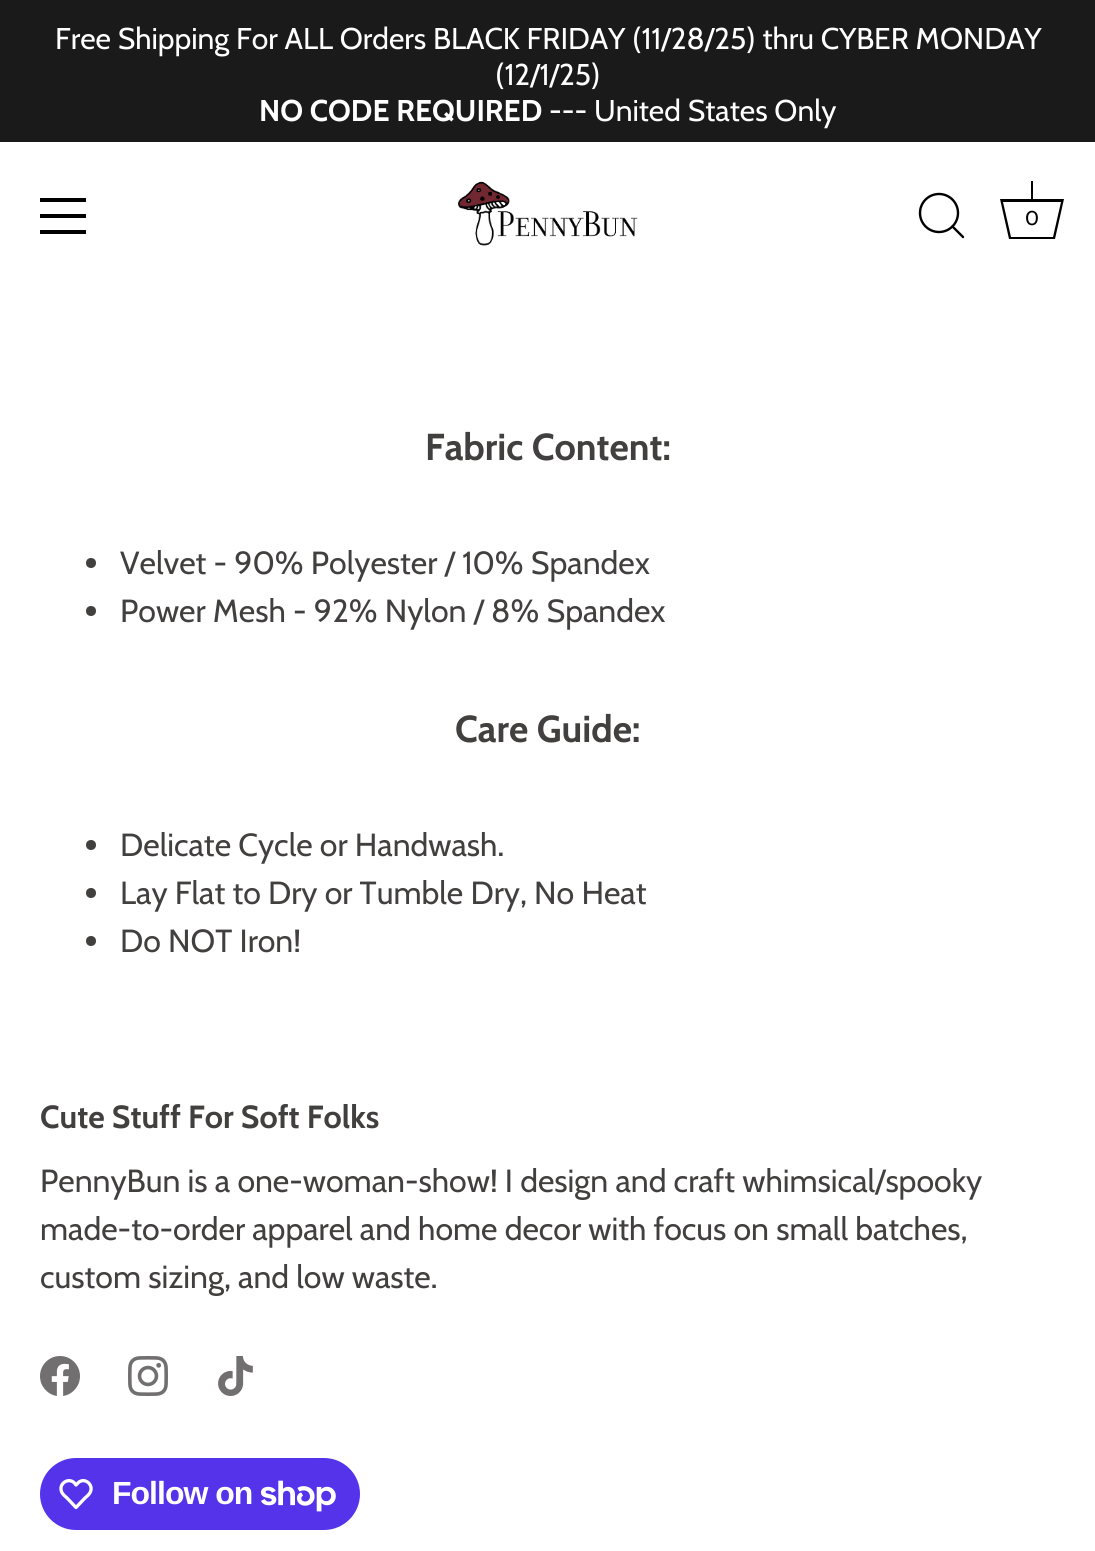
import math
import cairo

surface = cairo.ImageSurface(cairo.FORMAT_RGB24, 1095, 1551)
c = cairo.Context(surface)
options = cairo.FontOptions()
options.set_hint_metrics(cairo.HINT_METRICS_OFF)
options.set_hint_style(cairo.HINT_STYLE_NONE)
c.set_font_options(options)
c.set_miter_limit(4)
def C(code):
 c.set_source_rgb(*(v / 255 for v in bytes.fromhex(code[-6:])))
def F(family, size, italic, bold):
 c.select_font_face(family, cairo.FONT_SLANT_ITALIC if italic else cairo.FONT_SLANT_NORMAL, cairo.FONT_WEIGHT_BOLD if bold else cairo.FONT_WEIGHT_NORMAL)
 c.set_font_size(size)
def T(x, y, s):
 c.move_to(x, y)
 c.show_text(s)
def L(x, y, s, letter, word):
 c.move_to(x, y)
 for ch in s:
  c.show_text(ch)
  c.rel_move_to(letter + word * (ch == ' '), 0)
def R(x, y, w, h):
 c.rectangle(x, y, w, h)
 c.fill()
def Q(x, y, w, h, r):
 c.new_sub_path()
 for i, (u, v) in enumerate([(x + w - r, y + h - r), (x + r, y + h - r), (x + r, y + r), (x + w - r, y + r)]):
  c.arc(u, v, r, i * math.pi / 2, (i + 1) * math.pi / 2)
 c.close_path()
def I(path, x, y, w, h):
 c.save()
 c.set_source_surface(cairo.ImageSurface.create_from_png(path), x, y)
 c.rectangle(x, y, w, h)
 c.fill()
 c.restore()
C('ffffff')
c.paint()
C('1a1a1a')
R(0,0,1095,142)
F('Cabin',30,0,0)
C('ffffff')
T(55,49,'Free Shipping For ALL Orders BLACK FRIDAY (11/28/25) thru CYBER MONDAY')
T(495,85,'(12/1/25)')
F('Cabin',30,0,1)
T(259,121,'NO CODE REQUIRED')
F('Cabin',30,0,0)
T(549,121,'--- United States Only')
C('000000')
R(40,198,46,4)
R(40,214,46,4)
R(40,230,46,4)
I('1.png',458,181,180,65)
c.arc(939,213,19,0,2 * math.pi)
c.set_line_width(2.4)
c.stroke()
c.new_path()
c.move_to(963,237)
c.line_to(952.5,226.5)
c.set_line_cap(cairo.LINE_CAP_ROUND)
c.set_line_join(cairo.LINE_JOIN_ROUND)
c.stroke()
R(1031,181,2,18)
c.new_path()
c.move_to(1061,202)
c.line_to(1053,237)
c.line_to(1011,237)
c.line_to(1003,202)
c.line_to(1061,202)
c.move_to(1064,199)
c.line_to(1000,199)
c.line_to(1009,239)
c.line_to(1055,239)
c.close_path()
c.fill()
F('Cabin',20,0,0)
T(1025,225,'0')
F('Cabin',37.5,0,1)
C('423f3f')
T(425,460,'Fabric Content:')
c.new_path()
c.arc(91,563,5,0,2 * math.pi)
c.fill()
F('Cabin',32,0,0)
T(120,574,'Velvet - 90% Polyester / 10% Spandex')
c.new_path()
c.arc(91,611,5,0,2 * math.pi)
c.fill()
T(120,622,'Power Mesh - 92% Nylon / 8% Spandex')
F('Cabin',37.5,0,1)
T(455,742,'Care Guide:')
c.new_path()
c.arc(91,845,5,0,2 * math.pi)
c.fill()
F('Cabin',32,0,0)
T(120,856,'Delicate Cycle or Handwash.')
c.new_path()
c.arc(91,893,5,0,2 * math.pi)
c.fill()
T(120,904,'Lay Flat to Dry or Tumble Dry, No Heat')
c.new_path()
c.arc(91,941,5,0,2 * math.pi)
c.fill()
T(120,952,'Do NOT Iron!')
F('Cabin',32,0,1)
T(40,1128,'Cute Stuff For Soft Folks')
F('Cabin',32,0,0)
T(40,1192,'PennyBun is a one-woman-show! I design and craft whimsical/spooky')
T(40,1240,'made-to-order apparel and home decor with focus on small batches,')
T(40,1288,'custom sizing, and low waste.')
I('2.png',40,1356,40,40)
I('3.png',128,1356,40,40)
I('4.png',218,1356,35,40)
C('5433eb')
Q(40,1458,320,72,36)
c.fill()
c.new_path()
c.move_to(74.5,1483)
c.line_to(76,1485)
c.curve_to(77.5,1483.5,79,1481.5,81,1481)
c.curve_to(87,1479,93,1485.5,90.5,1491.5)
c.curve_to(89.5,1494.5,86.5,1496.5,84.5,1498.5)
c.line_to(76,1507.5)
c.line_to(67.5,1498.5)
c.curve_to(65.5,1496.5,62.5,1494.5,61.5,1491.5)
c.curve_to(58.5,1483.5,68.5,1477,74.5,1483)
c.close_path()
C('ffffff')
c.set_line_width(3.3)
c.set_line_cap(cairo.LINE_CAP_BUTT)
c.stroke()
F('Liberation Sans',32,0,1)
L(112,1504,'Follow on',-1,0)
I('5.png',261,1480,75,32)
surface.write_to_png('o.png')
